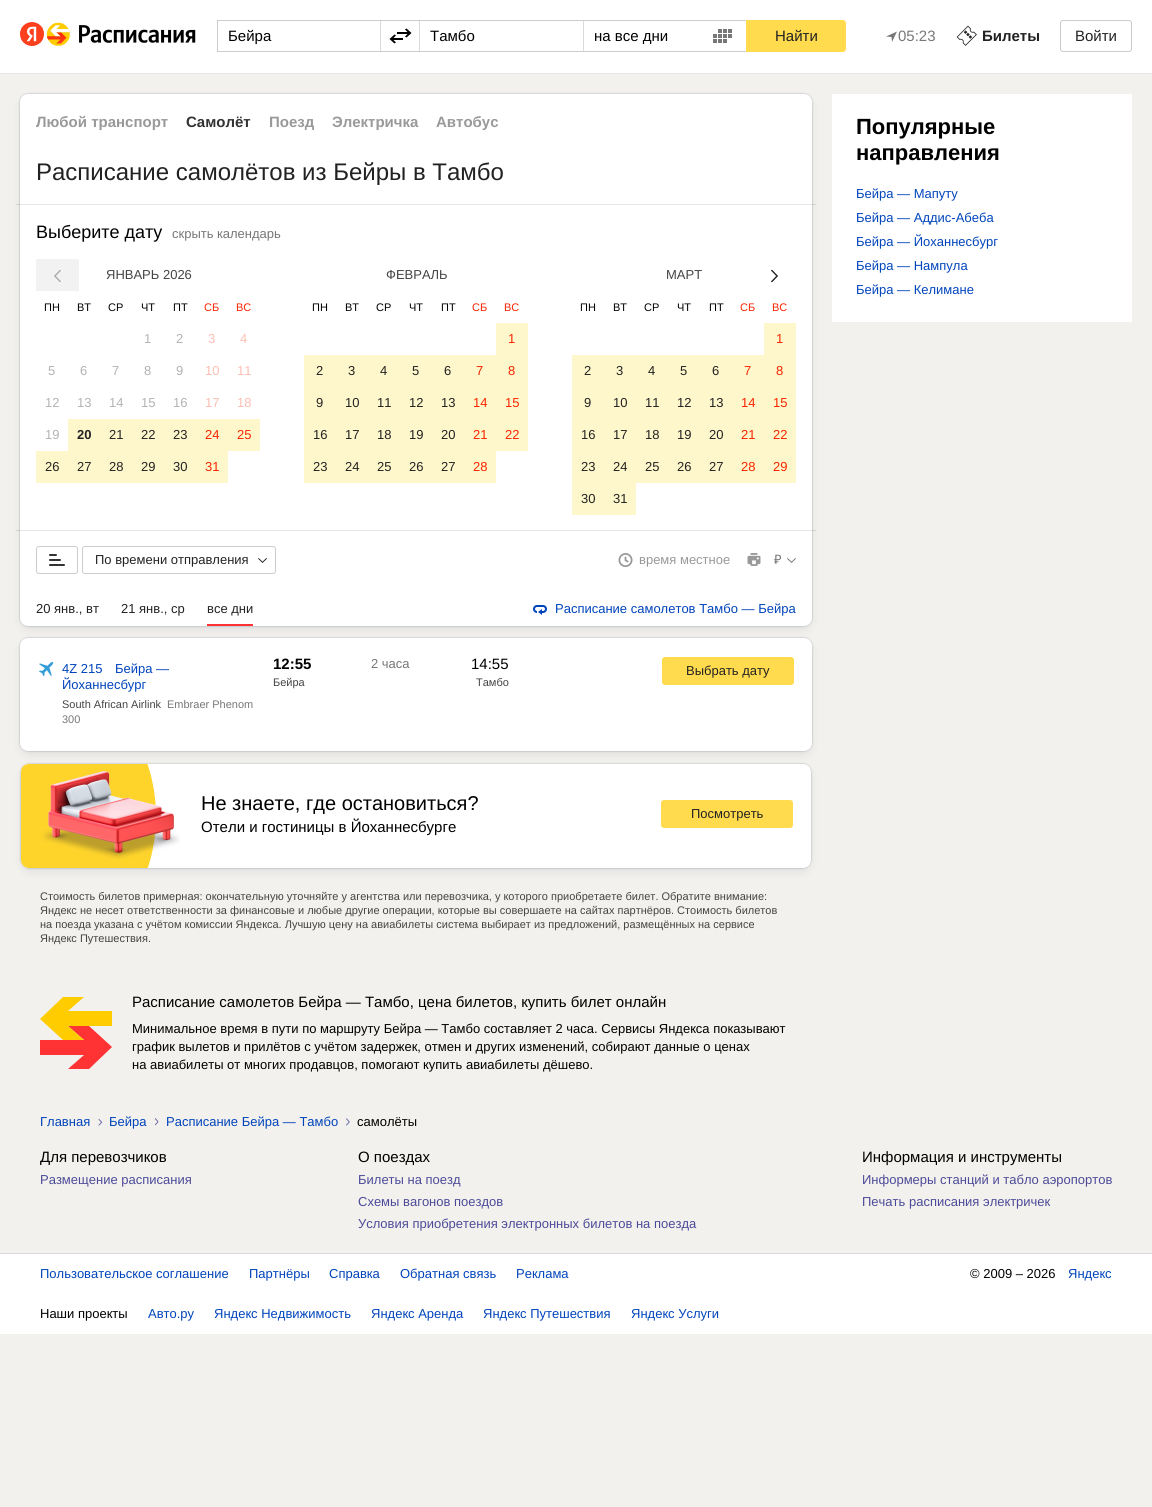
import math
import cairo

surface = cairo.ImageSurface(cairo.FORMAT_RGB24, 1152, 1507)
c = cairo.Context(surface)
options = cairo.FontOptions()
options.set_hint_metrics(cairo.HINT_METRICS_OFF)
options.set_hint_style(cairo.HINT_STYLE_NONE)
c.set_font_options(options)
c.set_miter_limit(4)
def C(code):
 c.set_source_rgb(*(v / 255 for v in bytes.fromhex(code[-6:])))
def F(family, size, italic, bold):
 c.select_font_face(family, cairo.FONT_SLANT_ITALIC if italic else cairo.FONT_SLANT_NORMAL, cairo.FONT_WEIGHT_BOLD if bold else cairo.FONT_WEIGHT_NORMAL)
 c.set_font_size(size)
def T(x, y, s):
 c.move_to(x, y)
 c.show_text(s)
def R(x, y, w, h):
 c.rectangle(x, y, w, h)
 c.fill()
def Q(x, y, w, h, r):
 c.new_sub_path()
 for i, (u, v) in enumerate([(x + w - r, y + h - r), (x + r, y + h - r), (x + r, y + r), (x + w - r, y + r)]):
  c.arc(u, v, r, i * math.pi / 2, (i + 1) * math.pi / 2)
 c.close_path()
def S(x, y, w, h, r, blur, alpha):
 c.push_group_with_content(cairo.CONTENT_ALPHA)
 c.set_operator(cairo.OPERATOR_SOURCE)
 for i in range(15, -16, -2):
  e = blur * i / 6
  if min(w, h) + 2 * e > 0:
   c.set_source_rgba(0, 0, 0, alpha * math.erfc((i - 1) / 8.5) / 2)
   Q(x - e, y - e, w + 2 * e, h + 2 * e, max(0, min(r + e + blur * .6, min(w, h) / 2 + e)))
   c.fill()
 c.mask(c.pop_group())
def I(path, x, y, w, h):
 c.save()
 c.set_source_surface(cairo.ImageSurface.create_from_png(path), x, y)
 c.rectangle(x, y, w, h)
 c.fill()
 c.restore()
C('f3f1ed')
c.paint()
C('ffffff')
R(0,0,1152,73)
C('e6e6e6')
R(0,73,1152,1)
I('1.png',20,22,24,24)
I('2.png',46,22,24,24)
I('3.png',79,25,117,18)
C('d9d9d9')
R(380,21,1,30)
R(419,21,1,30)
R(583,21,1,30)
c.rectangle(217.5,20.5,529,31)
C('cccccc')
c.set_line_width(1)
c.stroke()
F('Liberation Sans',15,0,0)
C('000000')
T(228,41,'Бейра')
I('4.png',397,28,15,10)
I('5.png',389,34,14,10)
T(430,41,'Тамбо')
T(594,41,'на все дни')
I('6.png',713,29,19,14)
C('ffdb4d')
c.new_path()
c.move_to(746,20)
c.line_to(843,20)
c.curve_to(844.5,20,846,21.5,846,23)
c.line_to(846,49)
c.curve_to(846,50.5,844.5,52,843,52)
c.line_to(746,52)
c.close_path()
c.fill()
C('222222')
T(775,41,'Найти')
C('777777')
c.set_fill_rule(cairo.FILL_RULE_EVEN_ODD)
c.new_path()
c.move_to(897,31.5)
c.line_to(886,36.5)
c.line_to(891.5,37)
c.line_to(892,42)
c.close_path()
c.fill()
T(898,41,'05:23')
I('7.png',956,25,21,21)
F('Liberation Sans',15,0,1)
C('222222')
T(982,41,'Билеты')
Q(1060.5,20.5,71,31,2.5)
C('cccccc')
c.stroke()
F('Liberation Sans',15,0,0)
C('222222')
T(1075,41,'Войти')
C('0d2343')
S(20,94,792,532,8,1,.3)
S(24,102,784,524,4,6,.15)
C('ffffff')
Q(20,94,792,532,8)
c.fill()
F('Liberation Sans',15,0,1)
C('999999')
T(36,127,'Любой транспорт')
C('333333')
T(186,127,'Самолёт')
C('999999')
T(269,127,'Поезд')
T(332,127,'Электричка')
T(436,127,'Автобус')
F('Liberation Sans',24,0,0)
C('222222')
T(36,180,'Расписание самолётов из Бейры в Тамбо')
c.set_source_rgba(0,0,0,0.1)
R(16,204,800,1)
R(16,530,800,1)
F('Liberation Sans',18,0,0)
C('000000')
T(36,238,'Выберите дату')
F('Liberation Sans',13,0,0)
C('777777')
T(172,238,'скрыть календарь')
C('f2f2f2')
R(36,259,43,32)
I('8.png',54,270,7,12)
C('444444')
T(106,279,'ЯНВАРЬ 2026')
C('b3b3b3')
T(144,343,'1')
T(176,343,'2')
C('fdbdb3')
T(208,343,'3')
T(240,343,'4')
C('b3b3b3')
T(48,375,'5')
T(80,375,'6')
T(112,375,'7')
T(144,375,'8')
T(176,375,'9')
C('fdbdb3')
T(205,375,'10')
T(237,375,'11')
C('b3b3b3')
T(45,407,'12')
T(77,407,'13')
T(109,407,'14')
T(141,407,'15')
T(173,407,'16')
C('fdbdb3')
T(205,407,'17')
T(237,407,'18')
C('b3b3b3')
T(45,439,'19')
C('fef7cb')
R(68,419,192,32)
F('Liberation Sans',13,0,1)
C('222222')
T(77,439,'20')
F('Liberation Sans',13,0,0)
T(109,439,'21')
T(141,439,'22')
T(173,439,'23')
C('f92400')
T(205,439,'24')
T(237,439,'25')
C('fef7cb')
R(36,451,192,32)
C('222222')
T(45,471,'26')
T(77,471,'27')
T(109,471,'28')
T(141,471,'29')
T(173,471,'30')
C('f92400')
T(205,471,'31')
F('Liberation Sans',11,0,0)
C('000000')
T(44,311,'ПН')
T(77,311,'ВТ')
T(108,311,'СР')
T(141,311,'ЧТ')
T(173,311,'ПТ')
C('f92400')
T(204,311,'СБ')
T(236,311,'ВС')
F('Liberation Sans',13,0,0)
C('444444')
T(386,279,'ФЕВРАЛЬ')
C('fef7cb')
R(496,323,32,32)
C('f92400')
T(508,343,'1')
C('fef7cb')
R(304,355,224,32)
C('222222')
T(316,375,'2')
T(348,375,'3')
T(380,375,'4')
T(412,375,'5')
T(444,375,'6')
C('f92400')
T(476,375,'7')
T(508,375,'8')
C('fef7cb')
R(304,387,224,32)
C('222222')
T(316,407,'9')
T(345,407,'10')
T(377,407,'11')
T(409,407,'12')
T(441,407,'13')
C('f92400')
T(473,407,'14')
T(505,407,'15')
C('fef7cb')
R(304,419,224,32)
C('222222')
T(313,439,'16')
T(345,439,'17')
T(377,439,'18')
T(409,439,'19')
T(441,439,'20')
C('f92400')
T(473,439,'21')
T(505,439,'22')
C('fef7cb')
R(304,451,192,32)
C('222222')
T(313,471,'23')
T(345,471,'24')
T(377,471,'25')
T(409,471,'26')
T(441,471,'27')
C('f92400')
T(473,471,'28')
F('Liberation Sans',11,0,0)
C('000000')
T(312,311,'ПН')
T(345,311,'ВТ')
T(376,311,'СР')
T(409,311,'ЧТ')
T(441,311,'ПТ')
C('f92400')
T(472,311,'СБ')
T(504,311,'ВС')
F('Liberation Sans',13,0,0)
C('444444')
T(666,279,'МАРТ')
C('fef7cb')
R(764,323,32,32)
C('f92400')
T(776,343,'1')
C('fef7cb')
R(572,355,224,32)
C('222222')
T(584,375,'2')
T(616,375,'3')
T(648,375,'4')
T(680,375,'5')
T(712,375,'6')
C('f92400')
T(744,375,'7')
T(776,375,'8')
C('fef7cb')
R(572,387,224,32)
C('222222')
T(584,407,'9')
T(613,407,'10')
T(645,407,'11')
T(677,407,'12')
T(709,407,'13')
C('f92400')
T(741,407,'14')
T(773,407,'15')
C('fef7cb')
R(572,419,224,32)
C('222222')
T(581,439,'16')
T(613,439,'17')
T(645,439,'18')
T(677,439,'19')
T(709,439,'20')
C('f92400')
T(741,439,'21')
T(773,439,'22')
C('fef7cb')
R(572,451,224,32)
C('222222')
T(581,471,'23')
T(613,471,'24')
T(645,471,'25')
T(677,471,'26')
T(709,471,'27')
C('f92400')
T(741,471,'28')
T(773,471,'29')
C('fef7cb')
R(572,483,64,32)
C('222222')
T(581,503,'30')
T(613,503,'31')
F('Liberation Sans',11,0,0)
C('000000')
T(580,311,'ПН')
T(613,311,'ВТ')
T(644,311,'СР')
T(677,311,'ЧТ')
T(709,311,'ПТ')
C('f92400')
T(740,311,'СБ')
T(772,311,'ВС')
I('9.png',771,269,7,14)
Q(36.5,546.5,41,27,2.5)
C('cccccc')
c.stroke()
I('10.png',49,554,16,12)
Q(82.5,546.5,193,27,2.5)
c.stroke()
F('Liberation Sans',13,0,0)
C('222222')
T(95,564,'По времени отправления')
I('11.png',258,558,9,5)
I('12.png',618,553,15,14)
C('999999')
T(639,564,'время местное')
I('13.png',747,553,14,13)
F('Noto Sans',13,0,0)
C('777777')
T(774,564,'₽')
I('14.png',787,558,9,5)
F('Liberation Sans',13,0,0)
C('222222')
T(36,613,'20 янв., вт')
T(121,613,'21 янв., ср')
T(207,613,'все дни')
C('ff3333')
R(207,624,46,2)
I('15.png',533,605,14,10)
C('0044bb')
T(555,613,'Расписание самолетов Тамбо — Бейра')
C('ff3333')
c.set_fill_rule(cairo.FILL_RULE_WINDING)
c.new_path()
c.move_to(68,1069)
c.line_to(89,1069)
c.line_to(112,1047)
c.line_to(89,1026)
c.line_to(68,1026)
c.line_to(84,1040)
c.line_to(40,1040)
c.line_to(40,1055)
c.line_to(84,1055)
c.fill()
C('ffcc00')
c.new_path()
c.move_to(84,1040)
c.line_to(63,1040)
c.line_to(40,1019)
c.line_to(63,997)
c.line_to(84,997)
c.line_to(68,1011)
c.line_to(112,1011)
c.line_to(112,1026)
c.line_to(68,1026)
c.fill()
F('Liberation Sans',15,0,0)
C('000000')
T(132,1007,'Расписание самолетов Бейра — Тамбо, цена билетов, купить билет онлайн')
F('Liberation Sans',13,0,0)
T(132,1033,'Минимальное время в пути по маршруту Бейра — Тамбо составляет 2 часа. Сервисы Яндекса показывают')
T(132,1051,'график вылетов и прилётов с учётом задержек, отмен и других изменений, собирают данные о ценах')
T(132,1069,'на авиабилеты от многих продавцов, помогают купить авиабилеты дёшево.')
C('0d2343')
S(20,638,792,113,8,1,.3)
S(21,764,790,104,8,1,.3)
S(25,772,782,96,4,6,.15)
C('ffffff')
Q(21,764,790,104,8)
c.fill()
I('17.png',21,764,159,104)
C('0d2343')
S(24,646,784,105,4,6,.15)
C('ffffff')
Q(20,638,792,113,8)
c.fill()
I('16.png',39,661,15,16)
C('0044bb')
T(62,673,'4Z 215')
T(115,673,'Бейра —')
T(62,689,'Йоханнесбург')
F('Liberation Sans',11,0,0)
C('444444')
T(62,708,'South African Airlink')
C('777777')
T(167,708,'Embraer Phenom')
T(62,723,'300')
F('Liberation Sans',15,0,1)
C('000000')
T(273,669,'12:55')
F('Liberation Sans',13,0,0)
C('777777')
T(371,668,'2 часа')
F('Liberation Sans',15,0,0)
C('000000')
T(471,669,'14:55')
C('ffdb4d')
Q(662,657,132,28,3)
c.fill()
F('Liberation Sans',13,0,0)
C('222222')
T(686,675,'Выбрать дату')
F('Liberation Sans',11,0,0)
C('444444')
T(273,686,'Бейра')
T(476,686,'Тамбо')
F('Liberation Sans',20,0,0)
C('000000')
T(201,810,'Не знаете, где остановиться?')
F('Liberation Sans',15,0,0)
T(201,832,'Отели и гостиницы в Йоханнесбурге')
C('ffdb4d')
Q(661,800,132,28,3)
c.fill()
F('Liberation Sans',13,0,0)
C('222222')
T(691,818,'Посмотреть')
F('Liberation Sans',11,0,0)
C('444444')
T(40,900,'Стоимость билетов примерная: окончательную уточняйте у агентства или перевозчика, у которого приобретаете билет. Обратите внимание:')
T(40,914,'Яндекс не несет ответственности за финансовые и любые другие операции, которые вы совершаете на сайтах партнёров. Стоимость билетов')
T(40,928,'на поезда указана с учётом комиссии Яндекса. Лучшую цену на авиабилеты система выбирает из предложений, размещённых на сервисе')
T(40,942,'Яндекс Путешествия.')
C('ffffff')
R(832,94,300,228)
F('Liberation Sans',22,0,1)
C('000000')
T(856,134,'Популярные')
T(856,160,'направления')
F('Liberation Sans',13,0,0)
C('0044bb')
T(856,198,'Бейра — Мапуту')
T(856,222,'Бейра — Аддис-Абеба')
T(856,246,'Бейра — Йоханнесбург')
T(856,270,'Бейра — Нампула')
T(856,294,'Бейра — Келимане')
T(40,1126,'Главная')
I('18.png',98,1118,4,8)
T(109,1126,'Бейра')
I('19.png',155,1118,4,8)
T(166,1126,'Расписание Бейра — Тамбо')
I('20.png',346,1118,4,8)
C('000000')
T(357,1126,'самолёты')
F('Liberation Sans',15,0,0)
T(40,1162,'Для перевозчиков')
F('Liberation Sans',13,0,0)
C('4b4b99')
T(40,1184,'Размещение расписания')
F('Liberation Sans',15,0,0)
C('000000')
T(358,1162,'О поездах')
F('Liberation Sans',13,0,0)
C('4b4b99')
T(358,1184,'Билеты на поезд')
T(358,1206,'Схемы вагонов поездов')
T(358,1228,'Условия приобретения электронных билетов на поезда')
F('Liberation Sans',15,0,0)
C('000000')
T(862,1162,'Информация и инструменты')
F('Liberation Sans',13,0,0)
C('4b4b99')
T(862,1184,'Информеры станций и табло аэропортов')
T(862,1206,'Печать расписания электричек')
C('ffffff')
R(0,1254,1152,80)
C('d9d9d9')
R(0,1253,1152,1)
C('0044bb')
T(40,1278,'Пользовательское соглашение')
T(249,1278,'Партнёры')
T(329,1278,'Справка')
T(400,1278,'Обратная связь')
T(516,1278,'Реклама')
C('000000')
T(970,1278,'© 2009 – 2026')
C('0044bb')
T(1068,1278,'Яндекс')
C('000000')
T(40,1318,'Наши проекты')
C('0044bb')
T(148,1318,'Авто.ру')
T(214,1318,'Яндекс Недвижимость')
T(371,1318,'Яндекс Аренда')
T(483,1318,'Яндекс Путешествия')
T(631,1318,'Яндекс Услуги')
surface.write_to_png('o.png')
